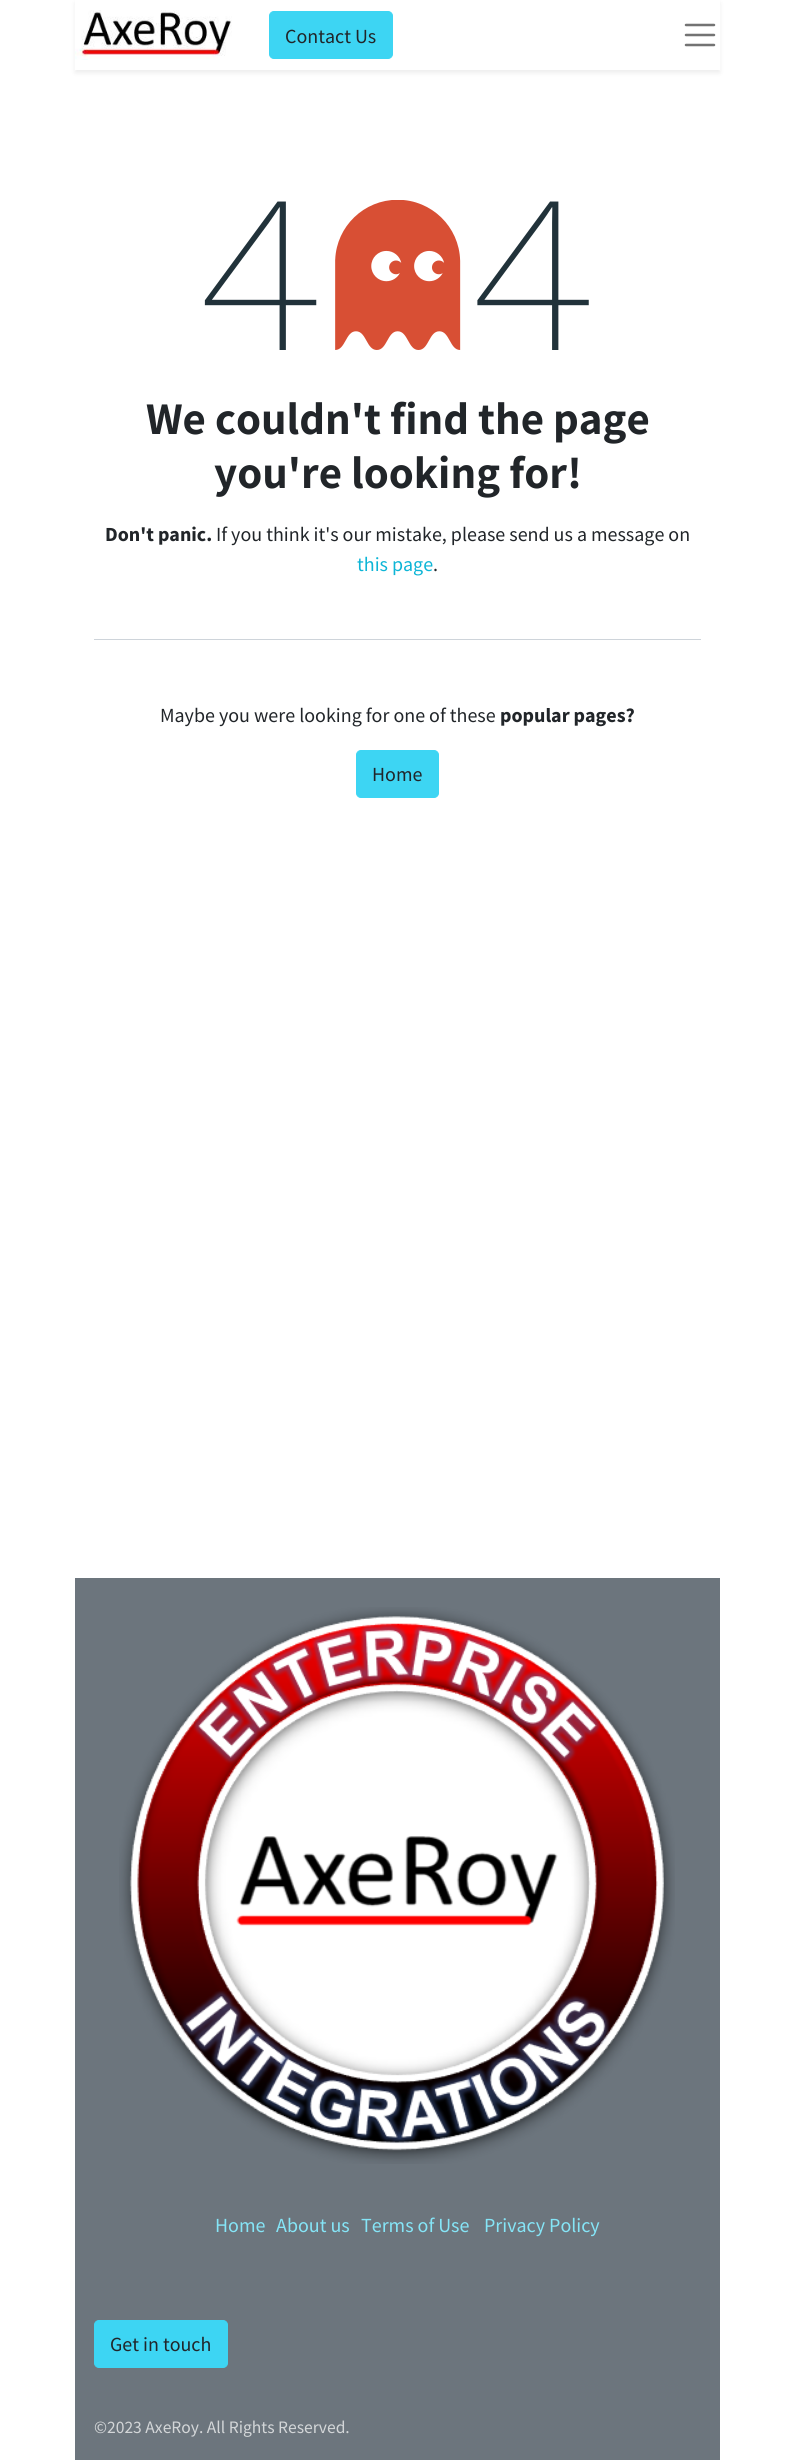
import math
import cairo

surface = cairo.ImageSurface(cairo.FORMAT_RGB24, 794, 2460)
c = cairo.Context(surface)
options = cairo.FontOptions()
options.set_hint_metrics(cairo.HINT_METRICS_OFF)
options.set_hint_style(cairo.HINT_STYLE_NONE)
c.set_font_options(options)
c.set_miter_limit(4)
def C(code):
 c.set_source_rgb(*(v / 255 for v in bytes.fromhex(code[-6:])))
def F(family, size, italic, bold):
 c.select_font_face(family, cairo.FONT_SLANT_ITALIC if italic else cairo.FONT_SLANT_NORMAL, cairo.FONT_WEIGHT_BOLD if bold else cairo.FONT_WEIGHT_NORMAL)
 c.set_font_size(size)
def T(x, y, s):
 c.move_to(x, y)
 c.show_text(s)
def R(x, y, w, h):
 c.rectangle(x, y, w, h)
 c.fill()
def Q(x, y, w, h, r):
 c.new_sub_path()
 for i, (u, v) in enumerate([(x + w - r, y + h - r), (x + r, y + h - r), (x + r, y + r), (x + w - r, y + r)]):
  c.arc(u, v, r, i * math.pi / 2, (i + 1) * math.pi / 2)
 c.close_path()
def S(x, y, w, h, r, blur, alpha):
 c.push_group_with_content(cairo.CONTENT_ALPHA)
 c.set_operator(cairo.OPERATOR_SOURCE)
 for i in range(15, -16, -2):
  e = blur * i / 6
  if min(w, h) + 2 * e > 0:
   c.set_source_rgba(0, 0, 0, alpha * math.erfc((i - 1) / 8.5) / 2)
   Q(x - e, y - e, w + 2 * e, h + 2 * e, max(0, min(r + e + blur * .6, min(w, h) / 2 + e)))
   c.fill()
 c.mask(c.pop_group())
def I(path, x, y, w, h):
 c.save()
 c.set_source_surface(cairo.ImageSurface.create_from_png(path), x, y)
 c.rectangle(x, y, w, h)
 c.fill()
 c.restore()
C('ffffff')
c.paint()
c.save()
c.set_fill_rule(cairo.FILL_RULE_EVEN_ODD)
c.new_path()
c.move_to(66,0)
c.line_to(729,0)
c.line_to(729,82)
c.line_to(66,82)
c.close_path()
c.move_to(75,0)
c.line_to(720,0)
c.line_to(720,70)
c.line_to(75,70)
c.close_path()
c.clip()
C('000000')
S(75,3,645,70,0,2.5,.07)
c.restore()
I('1.png',75,10,157,50)
C('3dd5f3')
Q(269.5,11.5,123,47,4.5)
c.fill_preserve()
c.set_line_width(1)
c.stroke()
F('Source Sans Pro',20,0,0)
C('212529')
T(285,43,'Contact Us')
c.new_path()
c.move_to(686,25)
c.line_to(714,25)
c.move_to(686,35)
c.line_to(714,35)
c.move_to(686,45)
c.line_to(714,45)
C('737373')
c.set_line_width(2.5)
c.set_line_cap(cairo.LINE_CAP_ROUND)
c.stroke()
I('2.png',204,200,385,150)
F('Assistant',45.25,0,1)
C('212529')
T(146,434,'We couldn\'t find the page')
T(214,488,'you\'re looking for!')
F('Source Sans Pro',20,0,1)
T(105,541,'Don\'t panic.')
F('Source Sans Pro',20,0,0)
T(216,541,'If you think it\'s our mistake, please send us a message on')
C('0db5d6')
T(357,571,'this page')
C('212529')
T(433,571,'.')
C('ced4da')
R(94,639,607,1)
C('212529')
T(160,722,'Maybe you were looking for one of these')
F('Source Sans Pro',20,0,1)
T(500,722,'popular pages?')
C('3dd5f3')
Q(356.5,750.5,82,47,4.5)
c.fill_preserve()
c.set_line_width(1)
c.set_line_cap(cairo.LINE_CAP_BUTT)
c.stroke()
F('Source Sans Pro',20,0,0)
C('212529')
T(372,781,'Home')
C('6c757d')
R(75,1578,645,882)
I('3.png',119,1607,556,557)
C('85e5f7')
T(215,2232,'Home')
T(276,2232,'About us')
T(361,2232,'Terms of Use')
T(484,2232,'Privacy Policy')
C('3dd5f3')
Q(94.5,2320.5,133,47,4.5)
c.fill_preserve()
c.stroke()
C('212529')
T(110,2351,'Get in touch')
F('Source Sans Pro',17.5,0,0)
C('d3d6d8')
T(94,2433,'©2023 AxeRoy. All Rights Reserved.')
surface.write_to_png('o.png')
